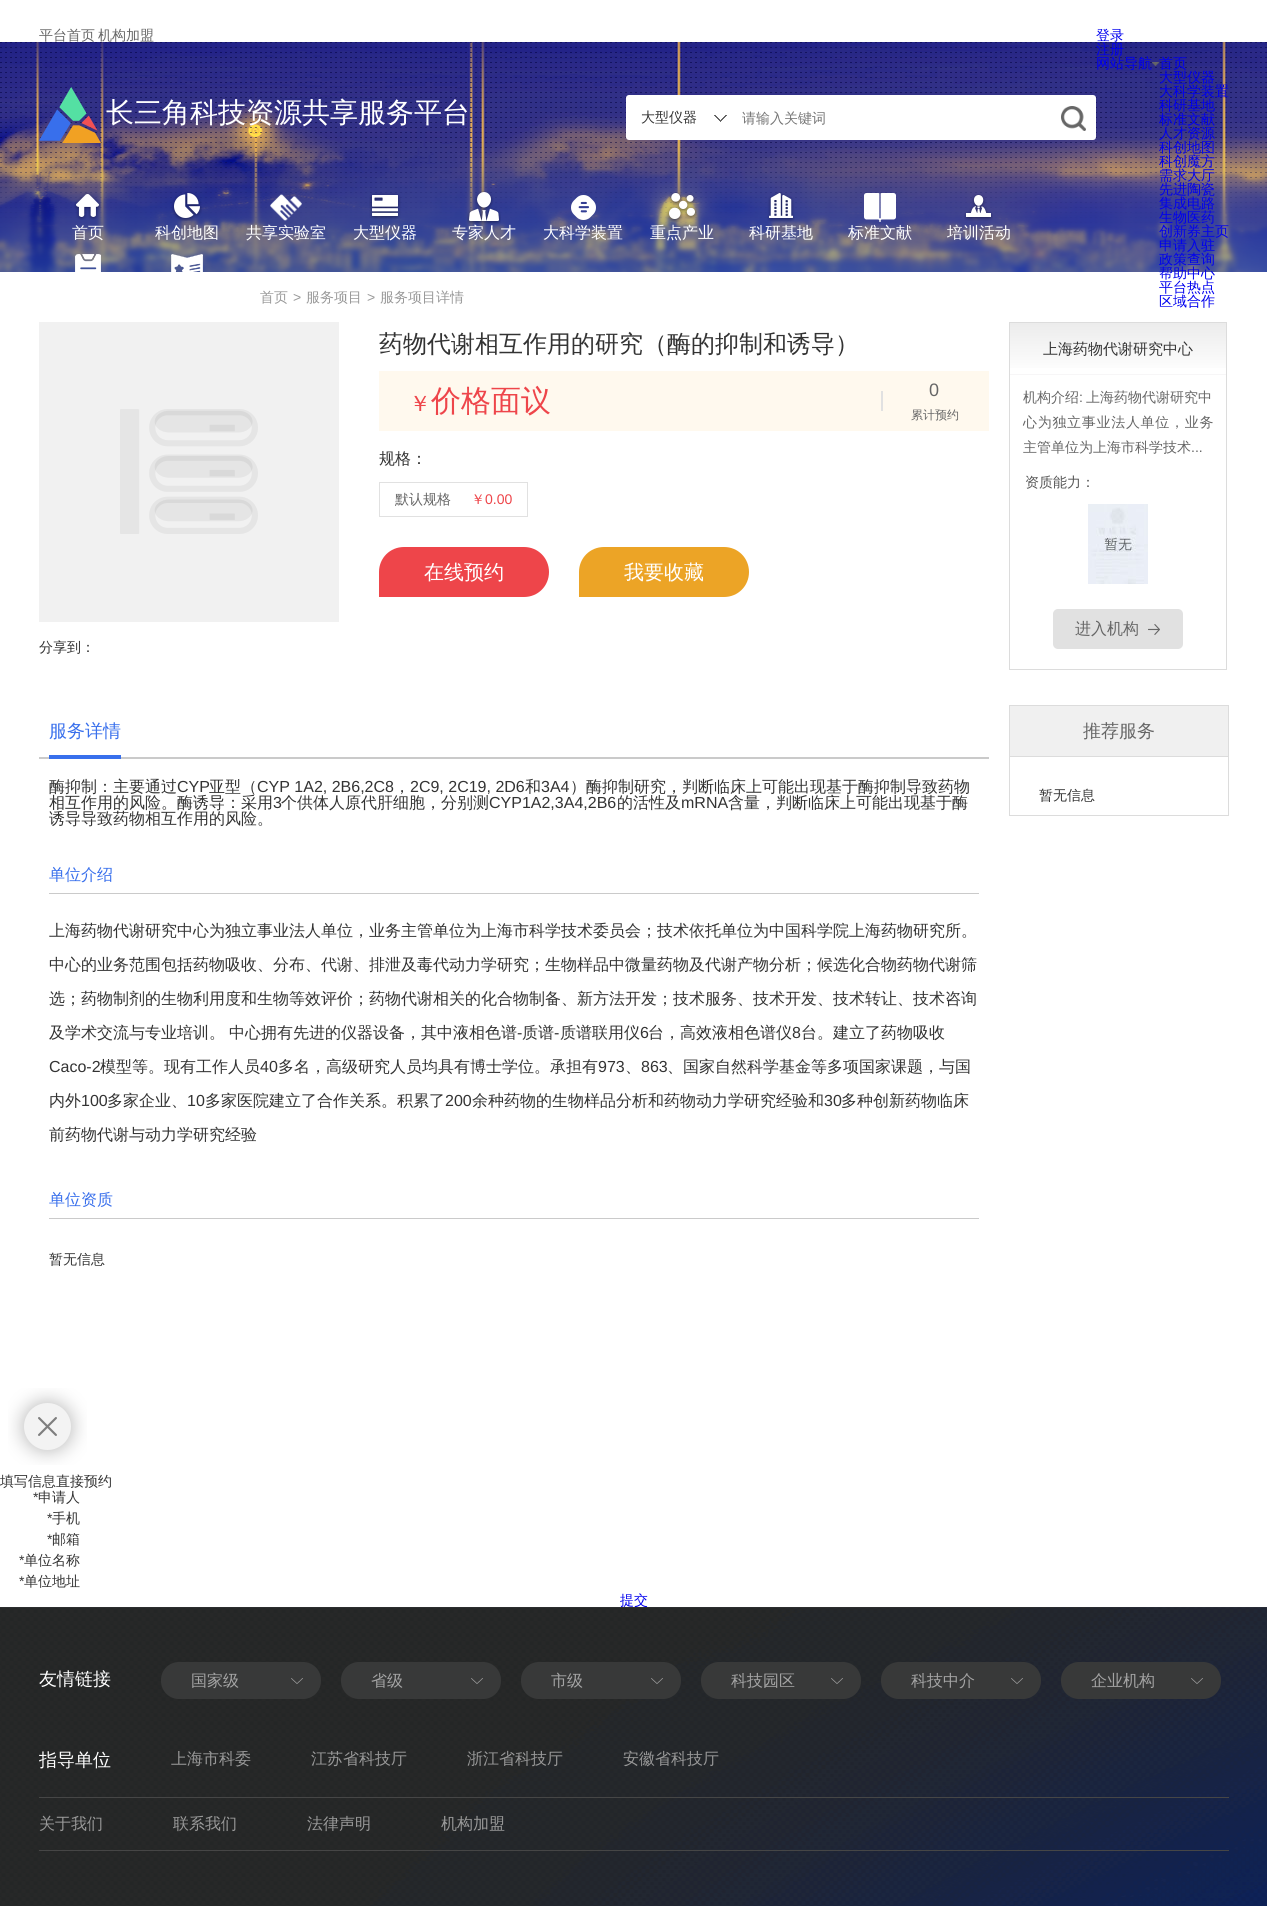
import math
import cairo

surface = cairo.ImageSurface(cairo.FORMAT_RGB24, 1267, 1906)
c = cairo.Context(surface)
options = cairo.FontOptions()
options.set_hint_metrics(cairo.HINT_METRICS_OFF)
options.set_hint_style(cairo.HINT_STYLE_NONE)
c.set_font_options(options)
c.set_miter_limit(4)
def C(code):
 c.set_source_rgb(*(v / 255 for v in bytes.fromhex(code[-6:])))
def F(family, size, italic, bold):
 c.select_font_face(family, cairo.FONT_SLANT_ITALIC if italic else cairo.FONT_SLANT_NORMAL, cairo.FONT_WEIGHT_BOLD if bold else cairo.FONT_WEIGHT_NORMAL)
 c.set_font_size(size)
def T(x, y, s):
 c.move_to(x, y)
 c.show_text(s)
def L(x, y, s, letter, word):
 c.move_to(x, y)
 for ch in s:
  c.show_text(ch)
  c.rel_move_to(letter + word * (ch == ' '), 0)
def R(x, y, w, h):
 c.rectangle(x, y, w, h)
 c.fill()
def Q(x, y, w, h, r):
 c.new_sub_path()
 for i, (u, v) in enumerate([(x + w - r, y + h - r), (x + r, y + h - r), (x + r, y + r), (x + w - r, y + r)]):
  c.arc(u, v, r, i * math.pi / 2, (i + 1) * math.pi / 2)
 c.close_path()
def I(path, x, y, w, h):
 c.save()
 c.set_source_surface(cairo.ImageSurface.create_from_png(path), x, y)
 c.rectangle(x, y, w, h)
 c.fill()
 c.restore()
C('ffffff')
c.paint()
F('WenQuanYi Zen Hei Medium',14,0,0)
C('666666')
T(39,40,'平台首页')
T(98,40,'机构加盟')
C('0000ee')
T(1096,40,'登录')
I('2.png',0,42,1267,230)
T(1096,54,'注册')
T(1096,68,'网站导航')
T(1159,68,'首页')
I('1.png',1152,62,7,4)
T(1159,82,'大型仪器')
T(1159,96,'大科学装置')
T(1159,110,'科研基地')
T(1159,124,'标准文献')
T(1159,138,'人才资源')
T(1159,152,'科创地图')
T(1159,166,'科创魔方')
T(1159,180,'需求大厅')
T(1159,194,'先进陶瓷')
T(1159,208,'集成电路')
T(1159,222,'生物医药')
T(1159,236,'创新券主页')
T(1159,250,'申请入驻')
T(1159,264,'政策查询')
T(1159,278,'帮助中心')
T(1159,292,'平台热点')
T(1159,306,'区域合作')
I('3.png',39,87,62,56)
F('WenQuanYi Zen Hei Medium',28,0,0)
C('ffffff')
T(106,122,'长三角科技资源共享服务平台')
Q(626,95,470,45,3)
c.fill()
F('WenQuanYi Zen Hei Medium',14,0,0)
C('333333')
T(641,122,'大型仪器')
I('4.png',714,115,13,7)
C('757575')
T(742,123,'请输入关键词')
I('5.png',1061,106,25,25)
I('6.png',74,193,27,27)
F('WenQuanYi Zen Hei Medium',16,0,0)
C('ffffff')
T(72,238,'首页')
I('7.png',171,192,31,29)
T(155,238,'科创地图')
I('8.png',270,194,32,27)
T(246,238,'共享实验室')
I('9.png',369,193,32,27)
T(353,238,'大型仪器')
I('10.png',467,191,34,34)
T(452,238,'专家人才')
I('11.png',571,195,25,25)
T(543,238,'大科学装置')
I('12.png',666,192,31,30)
T(650,238,'重点产业')
I('13.png',767,192,28,30)
T(749,238,'科研基地')
I('14.png',864,193,32,29)
T(848,238,'标准文献')
I('15.png',964,194,29,27)
T(947,238,'培训活动')
I('16.png',75,254,26,18)
I('17.png',171,254,32,18)
F('WenQuanYi Zen Hei Medium',14,0,0)
C('999999')
T(260,302,'首页')
F('Liberation Sans',14,0,0)
T(293,302,'>')
F('WenQuanYi Zen Hei Medium',14,0,0)
T(306,302,'服务项目')
F('Liberation Sans',14,0,0)
T(367,302,'>')
F('WenQuanYi Zen Hei Medium',14,0,0)
T(380,302,'服务项目详情')
F('WenQuanYi Zen Hei Medium',24,0,0)
C('333333')
T(379,352,'药物代谢相互作用的研究（酶的抑制和诱导）')
C('fff9ee')
R(379,371,610,60)
F('WenQuanYi Zen Hei Medium',22,0,0)
C('ee454a')
T(409,411,'￥')
F('WenQuanYi Zen Hei Medium',30,0,0)
T(431,411,'价格面议')
C('e1e1e1')
R(881,391,2,20)
F('Liberation Sans',18,0,0)
C('666666')
T(929,396,'0')
F('WenQuanYi Zen Hei Medium',12,0,0)
T(911,419,'累计预约')
F('WenQuanYi Zen Hei Medium',16,0,0)
C('333333')
T(379,464,'规格：')
c.rectangle(379.5,482.5,148,34)
C('e1e1e1')
c.set_line_width(1)
c.stroke()
F('WenQuanYi Zen Hei Medium',14,0,0)
C('666666')
T(395,504,'默认规格')
C('ee454a')
T(471,504,'￥')
F('Liberation Sans',14,0,0)
T(485,504,'0.00')
c.new_path()
c.move_to(404,547)
c.line_to(524,547)
c.curve_to(538,547,549,558,549,572)
c.curve_to(549,586,538,597,524,597)
c.line_to(379,597)
c.line_to(379,572)
c.curve_to(379,558,390,547,404,547)
c.close_path()
c.fill()
F('WenQuanYi Zen Hei Medium',20,0,0)
C('ffffff')
T(424,579,'在线预约')
C('eca426')
c.new_path()
c.move_to(604,547)
c.line_to(724,547)
c.curve_to(738,547,749,558,749,572)
c.curve_to(749,586,738,597,724,597)
c.line_to(579,597)
c.line_to(579,572)
c.curve_to(579,558,590,547,604,547)
c.close_path()
c.fill()
C('ffffff')
T(624,579,'我要收藏')
C('f1f1f1')
R(39,322,300,300)
I('18.png',120,409,138,125)
F('WenQuanYi Zen Hei Medium',14,0,0)
C('333333')
T(39,652,'分享到：')
C('cacaca')
R(39,757,950,2)
F('WenQuanYi Zen Hei Medium',18,0,0)
C('386fec')
T(49,737,'服务详情')
R(49,755,72,4)
F('WenQuanYi Zen Hei Medium',16,0,0)
C('333333')
T(49,792,'酶抑制：主要通过')
F('Liberation Sans',16,0,0)
T(177,792,'CYP')
F('WenQuanYi Zen Hei Medium',16,0,0)
T(209,792,'亚型（')
F('Liberation Sans',16,0,0)
T(257,792,'CYP 1A2, 2B6,2C8')
F('WenQuanYi Zen Hei Medium',16,0,0)
T(394,792,'，')
F('Liberation Sans',16,0,0)
T(410,792,'2C9, 2C19, 2D6')
F('WenQuanYi Zen Hei Medium',16,0,0)
T(525,792,'和')
F('Liberation Sans',16,0,0)
T(541,792,'3A4')
F('WenQuanYi Zen Hei Medium',16,0,0)
T(570,792,'）酶抑制研究，判断临床上可能出现基于酶抑制导致药物')
T(49,808,'相互作用的风险。酶诱导：采用')
F('Liberation Sans',16,0,0)
T(273,808,'3')
F('WenQuanYi Zen Hei Medium',16,0,0)
T(281,808,'个供体人原代肝细胞，分别测')
F('Liberation Sans',16,0,0)
T(489,808,'CYP1A2,3A4,2B6')
F('WenQuanYi Zen Hei Medium',16,0,0)
T(617,808,'的活性及')
F('Liberation Sans',16,0,0)
T(681,808,'mRNA')
F('WenQuanYi Zen Hei Medium',16,0,0)
T(728,808,'含量，判断临床上可能出现基于酶')
T(49,824,'诱导导致药物相互作用的风险。')
C('cacaca')
R(49,893,930,1)
C('386fec')
T(49,880,'单位介绍')
C('333333')
T(49,936,'上海药物代谢研究中心为独立事业法人单位，业务主管单位为上海市科学技术委员会；技术依托单位为中国科学院上海药物研究所。')
T(49,970,'中心的业务范围包括药物吸收、分布、代谢、排泄及毒代动力学研究；生物样品中微量药物及代谢产物分析；候选化合物药物代谢筛')
T(49,1004,'选；药物制剂的生物利用度和生物等效评价；药物代谢相关的化合物制备、新方法开发；技术服务、技术开发、技术转让、技术咨询')
T(49,1038,'及学术交流与专业培训。')
T(229,1038,'中心拥有先进的仪器设备，其中液相色谱')
F('Liberation Sans',16,0,0)
T(517,1038,'-')
F('WenQuanYi Zen Hei Medium',16,0,0)
T(522,1038,'质谱')
F('Liberation Sans',16,0,0)
T(554,1038,'-')
F('WenQuanYi Zen Hei Medium',16,0,0)
T(560,1038,'质谱联用仪')
F('Liberation Sans',16,0,0)
T(640,1038,'6')
F('WenQuanYi Zen Hei Medium',16,0,0)
T(648,1038,'台，高效液相色谱仪')
F('Liberation Sans',16,0,0)
T(792,1038,'8')
F('WenQuanYi Zen Hei Medium',16,0,0)
T(801,1038,'台。建立了药物吸收')
F('Liberation Sans',16,0,0)
T(49,1072,'Caco-2')
F('WenQuanYi Zen Hei Medium',16,0,0)
T(100,1072,'模型等。现有工作人员')
F('Liberation Sans',16,0,0)
T(260,1072,'40')
F('WenQuanYi Zen Hei Medium',16,0,0)
T(278,1072,'多名，高级研究人员均具有博士学位。承担有')
F('Liberation Sans',16,0,0)
T(598,1072,'973')
F('WenQuanYi Zen Hei Medium',16,0,0)
T(625,1072,'、')
F('Liberation Sans',16,0,0)
T(641,1072,'863')
F('WenQuanYi Zen Hei Medium',16,0,0)
T(667,1072,'、国家自然科学基金等多项国家课题，与国')
T(49,1106,'内外')
F('Liberation Sans',16,0,0)
T(81,1106,'100')
F('WenQuanYi Zen Hei Medium',16,0,0)
T(107,1106,'多家企业、')
F('Liberation Sans',16,0,0)
T(187,1106,'10')
F('WenQuanYi Zen Hei Medium',16,0,0)
T(205,1106,'多家医院建立了合作关系。积累了')
F('Liberation Sans',16,0,0)
T(445,1106,'200')
F('WenQuanYi Zen Hei Medium',16,0,0)
T(472,1106,'余种药物的生物样品分析和药物动力学研究经验和')
F('Liberation Sans',16,0,0)
T(824,1106,'30')
F('WenQuanYi Zen Hei Medium',16,0,0)
T(841,1106,'多种创新药物临床')
T(49,1140,'前药物代谢与动力学研究经验')
C('cacaca')
R(49,1218,930,1)
C('386fec')
T(49,1205,'单位资质')
F('WenQuanYi Zen Hei Medium',14,0,0)
C('333333')
T(49,1264,'暂无信息')
gradient = cairo.LinearGradient(1118,323,1118,669)
gradient.add_color_stop_rgba(0,0.925,0.925,0.925,1)
gradient.add_color_stop_rgba(.15,1,1,1,1)
c.set_source(gradient)
R(1010,323,216,45)
c.rectangle(1009.5,322.5,217,347)
C('dcdcdc')
c.stroke()
C('f7f6f7')
R(1010,374,216,1)
F('WenQuanYi Zen Hei Medium',15,0,0)
C('333333')
T(1043,354,'上海药物代谢研究中心')
F('WenQuanYi Zen Hei Medium',14,0,0)
C('666666')
T(1023,402,'机构介绍')
F('Liberation Sans',14,0,0)
T(1079,402,':')
F('WenQuanYi Zen Hei Medium',14,0,0)
T(1086,402,'上海药物代谢研究中')
L(1023,427,'心为独立事业法人单位，业务',.7,0)
T(1023,452,'主管单位为上海市科学技术')
F('Liberation Sans',14,0,0)
T(1191,452,'...')
F('WenQuanYi Zen Hei Medium',14,0,0)
C('555555')
T(1025,487,'资质能力：')
I('19.png',1088,504,60,80)
C('e1e1e1')
Q(1053,609,130,40,5)
c.fill()
I('20.png',1148,624,12,11)
F('WenQuanYi Zen Hei Medium',16,0,0)
C('666666')
T(1075,634,'进入机构')
c.rectangle(1009.5,705.5,219,110)
C('dcdcdc')
c.stroke()
C('f0f0f0')
R(1010,706,218,50)
C('dcdcdc')
R(1010,756,218,1)
F('WenQuanYi Zen Hei Medium',18,0,0)
C('666666')
T(1083,737,'推荐服务')
F('WenQuanYi Zen Hei Medium',14,0,0)
C('333333')
T(1039,800,'暂无信息')
I('21.png',8,1388,79,77)
T(0,1486,'填写信息直接预约')
F('Liberation Sans',14,0,0)
T(33,1502,'*')
F('WenQuanYi Zen Hei Medium',14,0,0)
T(38,1502,'申请人')
F('Liberation Sans',14,0,0)
T(47,1523,'*')
F('WenQuanYi Zen Hei Medium',14,0,0)
T(52,1523,'手机')
F('Liberation Sans',14,0,0)
T(47,1544,'*')
F('WenQuanYi Zen Hei Medium',14,0,0)
T(52,1544,'邮箱')
F('Liberation Sans',14,0,0)
T(19,1565,'*')
F('WenQuanYi Zen Hei Medium',14,0,0)
T(24,1565,'单位名称')
F('Liberation Sans',14,0,0)
T(19,1586,'*')
F('WenQuanYi Zen Hei Medium',14,0,0)
T(24,1586,'单位地址')
C('0000ee')
T(620,1605,'提交')
I('22.png',0,1607,1267,299)
F('WenQuanYi Zen Hei Medium',18,0,0)
C('ffffff')
T(39,1685,'友情链接')
C('383939')
Q(161,1662,160,37,18)
c.fill()
I('23.png',291,1678,12,6)
F('WenQuanYi Zen Hei Medium',16,0,0)
C('a4a4a4')
T(191,1686,'国家级')
C('383939')
Q(341,1662,160,37,18)
c.fill()
I('23.png',471,1678,12,6)
C('a4a4a4')
T(371,1686,'省级')
C('383939')
Q(521,1662,160,37,18)
c.fill()
I('23.png',651,1678,12,6)
C('a4a4a4')
T(551,1686,'市级')
C('383939')
Q(701,1662,160,37,18)
c.fill()
I('23.png',831,1678,12,6)
C('a4a4a4')
T(731,1686,'科技园区')
C('383939')
Q(881,1662,160,37,18)
c.fill()
I('23.png',1011,1678,12,6)
C('a4a4a4')
T(911,1686,'科技中介')
C('383939')
Q(1061,1662,160,37,18)
c.fill()
I('23.png',1191,1678,12,6)
C('a4a4a4')
T(1091,1686,'企业机构')
C('464646')
R(39,1797,1190,1)
F('WenQuanYi Zen Hei Medium',18,0,0)
C('ffffff')
T(39,1766,'指导单位')
c.save()
c.rectangle(39,1751,1190,46)
c.clip()
F('WenQuanYi Zen Hei Medium',16,0,0)
C('999999')
T(171,1764,'上海市科委')
T(311,1764,'江苏省科技厅')
c.restore()
F('WenQuanYi Zen Hei Medium',16,0,0)
C('999999')
T(467,1764,'浙江省科技厅')
T(623,1764,'安徽省科技厅')
C('464646')
R(39,1850,1190,1)
C('999999')
T(39,1829,'关于我们')
T(173,1829,'联系我们')
T(307,1829,'法律声明')
T(441,1829,'机构加盟')
surface.write_to_png('o.png')
